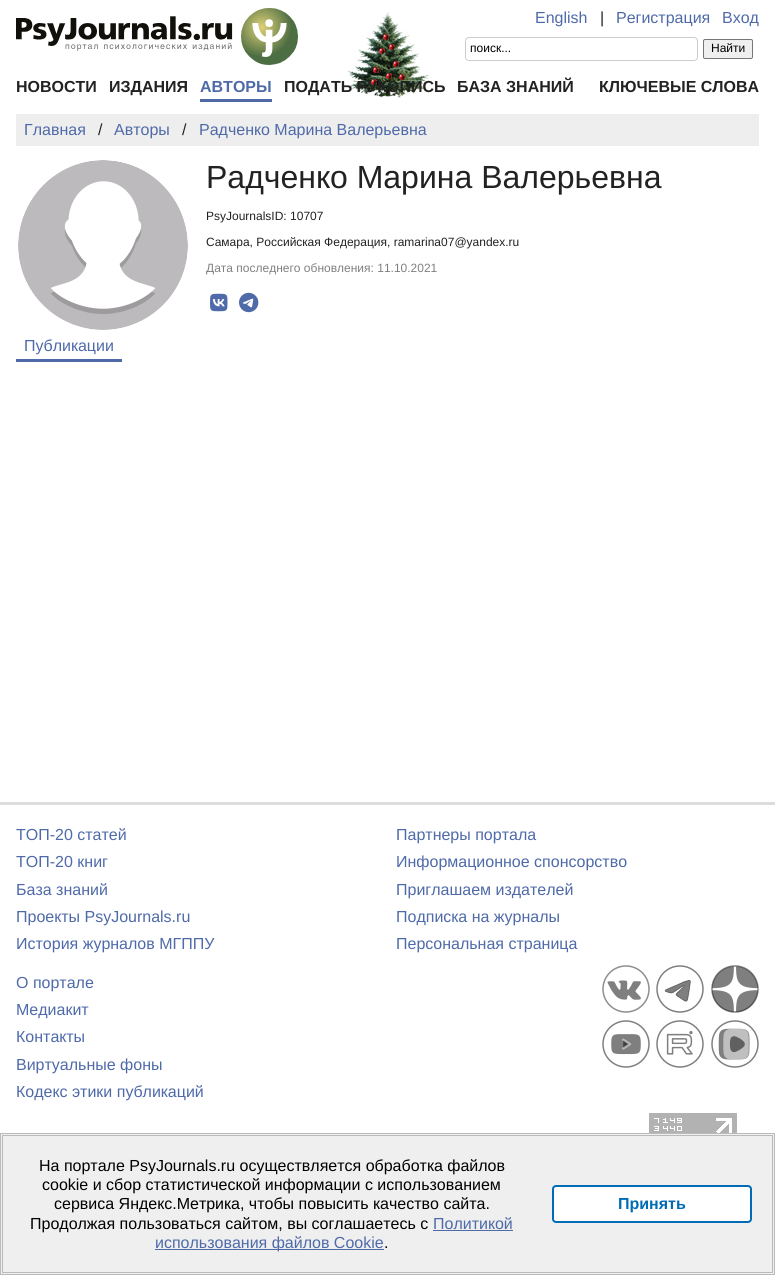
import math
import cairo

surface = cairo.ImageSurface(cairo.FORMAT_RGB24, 775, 1275)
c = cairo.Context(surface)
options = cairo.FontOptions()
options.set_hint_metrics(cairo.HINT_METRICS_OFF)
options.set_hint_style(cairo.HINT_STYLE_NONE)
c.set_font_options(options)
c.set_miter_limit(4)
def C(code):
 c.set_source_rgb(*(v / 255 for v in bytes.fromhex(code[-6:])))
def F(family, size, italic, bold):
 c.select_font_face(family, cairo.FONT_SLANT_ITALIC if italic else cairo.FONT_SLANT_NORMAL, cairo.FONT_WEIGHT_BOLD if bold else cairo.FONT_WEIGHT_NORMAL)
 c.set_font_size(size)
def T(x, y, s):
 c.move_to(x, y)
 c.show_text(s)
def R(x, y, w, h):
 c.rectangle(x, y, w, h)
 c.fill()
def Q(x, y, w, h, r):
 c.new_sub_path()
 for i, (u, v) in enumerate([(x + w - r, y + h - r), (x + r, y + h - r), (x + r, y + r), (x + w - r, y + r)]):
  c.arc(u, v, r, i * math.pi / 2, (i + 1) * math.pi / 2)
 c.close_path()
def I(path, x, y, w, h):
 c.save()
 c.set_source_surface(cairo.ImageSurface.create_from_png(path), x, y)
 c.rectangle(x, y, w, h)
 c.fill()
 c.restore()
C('ffffff')
c.paint()
I('1.png',348,12,81,86)
I('2.png',16,8,282,57)
F('Liberation Sans',16,0,0)
C('4e6aa9')
T(535,23,'English')
C('222222')
T(600,23,'|')
C('4e6aa9')
T(616,23,'Регистрация')
T(722,23,'Вход')
Q(465.5,37.5,232,23,3.5)
C('cccccc')
c.set_line_width(1)
c.stroke()
F('Liberation Sans',12,0,0)
C('000000')
T(470,52,'поиск...')
C('efefef')
Q(703.5,39.5,49,19,1.5)
c.fill_preserve()
C('767676')
c.stroke()
C('000000')
T(711,52,'Найти')
F('Liberation Sans',16,0,1)
C('222222')
T(16,92,'НОВОСТИ')
T(109,92,'ИЗДАНИЯ')
C('4e6aa9')
R(200,99,72,3)
T(200,92,'АВТОРЫ')
C('222222')
T(284,92,'ПОДАТЬ РУКОПИСЬ')
T(457,92,'БАЗА ЗНАНИЙ')
T(599,92,'КЛЮЧЕВЫЕ СЛОВА')
C('eeeeee')
R(16,114,743,32)
F('Liberation Sans',16,0,0)
C('4e6aa9')
T(24,135,'Главная')
C('222222')
T(98,135,'/')
C('4e6aa9')
T(114,135,'Авторы')
C('222222')
T(182,135,'/')
C('4e6aa9')
T(199,135,'Радченко Марина Валерьевна')
I('3.png',18,160,170,170)
F('Liberation Sans',32,0,0)
C('222222')
T(206,188,'Радченко Марина Валерьевна')
F('Liberation Sans',12,0,0)
T(206,220,'PsyJournalsID: 10707')
T(206,246,'Самара, Российская Федерация, ramarina07@yandex.ru')
C('808080')
T(206,272,'Дата последнего обновления: 11.10.2021')
I('4.png',210,293,18,19)
I('5.png',239,292,20,21)
C('4e6aa9')
R(16,359,106,3)
F('Liberation Sans',16,0,0)
T(24,351,'Публикации')
C('dddddd')
R(0,802,775,3)
C('4e6aa9')
T(16,840,'ТОП-20 статей')
T(16,867,'ТОП-20 книг')
T(16,895,'База знаний')
T(16,922,'Проекты PsyJournals.ru')
T(16,949,'История журналов МГППУ')
T(396,840,'Партнеры портала')
T(396,867,'Информационное спонсорство')
T(396,895,'Приглашаем издателей')
T(396,922,'Подписка на журналы')
T(396,949,'Персональная страница')
T(16,988,'О портале')
T(16,1015,'Медиакит')
T(16,1042,'Контакты')
T(16,1070,'Виртуальные фоны')
T(16,1097,'Кодекс этики публикаций')
I('6.png',602,965,48,48)
I('7.png',656,965,48,48)
I('8.png',711,965,48,48)
I('9.png',602,1020,48,48)
I('10.png',656,1020,48,48)
I('11.png',711,1020,48,48)
I('12.png',649,1113,88,20)
C('efefef')
c.rectangle(.5,1133.5,774,141)
c.fill_preserve()
C('bdbabd')
c.stroke()
c.rectangle(2.5,1135.5,770,137)
c.stroke()
C('000000')
T(39,1171,'На портале PsyJournals.ru осуществляется обработка файлов')
T(42,1190,'cookie и сбор статистической информации с использованием')
T(54,1209,'сервиса Яндекс.Метрика, чтобы повысить качество сайта.')
T(30,1229,'Продолжая пользоваться сайтом, вы соглашаетесь с')
C('4e6aa9')
T(433,1229,'Политикой')
R(433,1230,80,1)
R(155,1249,229,1)
T(155,1248,'использования файлов Cookie')
C('000000')
T(384,1248,'.')
C('ffffff')
Q(553,1186,198,36,3)
c.fill_preserve()
C('006cb7')
c.set_line_width(2)
c.stroke()
F('Liberation Sans',16,0,1)
T(618,1209,'Принять')
surface.write_to_png('o.png')
